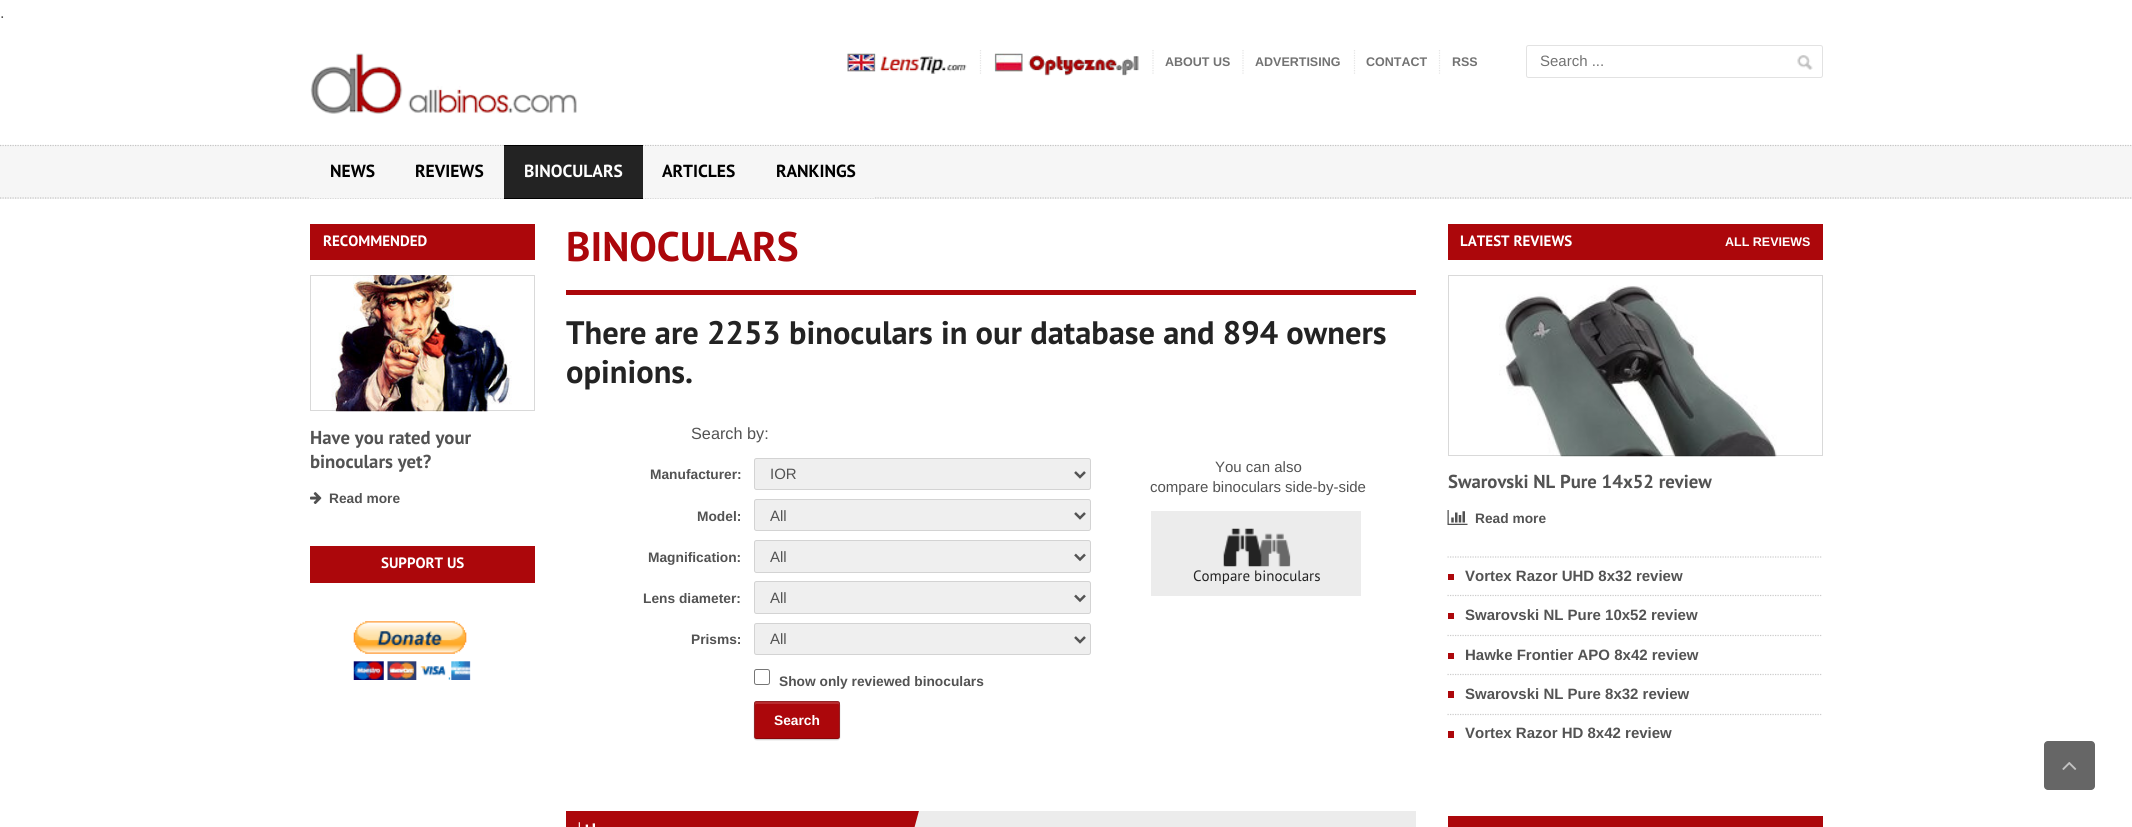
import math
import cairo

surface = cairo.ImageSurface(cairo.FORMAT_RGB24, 2132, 827)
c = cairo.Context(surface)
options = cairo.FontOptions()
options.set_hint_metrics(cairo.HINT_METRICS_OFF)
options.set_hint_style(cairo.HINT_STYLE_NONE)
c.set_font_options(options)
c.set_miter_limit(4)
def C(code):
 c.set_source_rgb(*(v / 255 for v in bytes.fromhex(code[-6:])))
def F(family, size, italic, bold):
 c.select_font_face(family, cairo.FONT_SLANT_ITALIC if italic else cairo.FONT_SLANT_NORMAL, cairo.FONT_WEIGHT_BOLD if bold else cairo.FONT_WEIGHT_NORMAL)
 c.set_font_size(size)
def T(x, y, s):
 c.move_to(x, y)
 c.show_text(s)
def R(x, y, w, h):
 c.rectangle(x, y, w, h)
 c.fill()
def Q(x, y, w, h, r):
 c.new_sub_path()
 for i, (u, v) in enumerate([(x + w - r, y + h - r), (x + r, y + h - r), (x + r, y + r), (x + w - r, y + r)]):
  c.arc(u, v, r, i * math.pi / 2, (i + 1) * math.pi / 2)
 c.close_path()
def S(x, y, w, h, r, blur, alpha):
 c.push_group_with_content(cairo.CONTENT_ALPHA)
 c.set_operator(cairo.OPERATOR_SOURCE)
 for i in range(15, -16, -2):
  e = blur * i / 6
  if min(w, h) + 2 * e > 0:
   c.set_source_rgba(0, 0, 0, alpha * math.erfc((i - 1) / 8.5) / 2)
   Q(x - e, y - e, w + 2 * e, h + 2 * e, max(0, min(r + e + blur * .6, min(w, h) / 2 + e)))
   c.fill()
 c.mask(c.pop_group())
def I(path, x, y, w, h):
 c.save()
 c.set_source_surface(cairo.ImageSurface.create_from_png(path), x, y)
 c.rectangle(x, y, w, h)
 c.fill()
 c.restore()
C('ffffff')
c.paint()
F('Liberation Sans',16.25,0,0)
C('535353')
T(0,18,'.')
I('1.png',310,53,267,61)
c.new_path()
c.move_to(980.5,50)
c.line_to(980.5,74)
C('e5e5e5')
c.set_line_width(1.2)
c.set_dash([1.25,1.25])
c.stroke()
I('2.png',847,53,120,21)
c.new_path()
c.move_to(1153,50)
c.line_to(1153,74)
c.stroke()
I('3.png',994,53,145,23)
c.new_path()
c.move_to(1243,50)
c.line_to(1243,74)
c.stroke()
F('Liberation Sans',12.5,0,1)
C('727272')
T(1165,66,'ABOUT US')
c.new_path()
c.move_to(1354.5,50)
c.line_to(1354.5,74)
C('e5e5e5')
c.stroke()
C('727272')
T(1255,66,'ADVERTISING')
c.new_path()
c.move_to(1439.5,50)
c.line_to(1439.5,74)
C('e5e5e5')
c.stroke()
C('727272')
T(1366,66,'CONTACT')
T(1452,66,'RSS')
Q(1526.5,45.5,296,32,2)
C('e2e2e2')
c.set_line_width(1)
c.set_dash([])
c.stroke()
F('Liberation Sans',15,0,0)
C('727272')
T(1540,66,'Search ...')
I('4.png',1797,55,16,15)
C('f6f6f6')
R(0,145,2132,54)
c.new_path()
c.move_to(0,145.5)
c.line_to(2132.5,145.5)
C('c5c5c5')
c.set_line_width(1.2)
c.set_dash([1.25,1.25])
c.stroke()
c.new_path()
c.move_to(0,198)
c.line_to(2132.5,198)
c.stroke()
C('f6f6f6')
R(310,146,84,52)
F('PT Sans',17.5,0,1)
C('000000')
T(330,177,'NEWS')
C('f6f6f6')
R(395,146,109,52)
C('000000')
T(415,177,'REVIEWS')
R(504,145,139,54)
C('232323')
R(504,146,139,52)
C('ffffff')
T(524,177,'BINOCULARS')
C('f6f6f6')
R(643,146,231,52)
C('000000')
T(662,177,'ARTICLES')
T(776,177,'RANKINGS')
C('ac070b')
R(310,224,225,36)
F('PT Sans',15,0,1)
C('ffffff')
T(323,246,'RECOMMENDED')
I('5.png',331,275,181,137)
c.rectangle(310.5,275.5,224,135)
c.set_source_rgba(0,0,0,0.15)
c.set_line_width(1)
c.set_dash([])
c.stroke()
F('PT Sans',18.75,0,1)
C('535353')
T(310,444,'Have you rated your')
T(310,468,'binoculars yet?')
I('6.png',310,492,12,12)
F('Liberation Sans',13.75,0,1)
T(329,503,'Read more')
C('ac070b')
R(310,546,225,37)
F('PT Sans',15,0,1)
C('ffffff')
T(381,568,'SUPPORT US')
I('7.png',353,621,118,59)
C('ac070b')
R(566,290,850,5)
F('PT Sans',41.25,0,1)
T(566,261,'BINOCULARS')
F('PT Sans',32.5,0,1)
C('232323')
T(566,344,'There are 2253 binoculars in our database and 894 owners')
T(566,383,'opinions.')
F('Liberation Sans',16.25,0,0)
C('535353')
T(691,439,'Search by:')
F('Liberation Sans',13.75,0,1)
T(650,479,'Manufacturer:')
C('efefef')
Q(754.5,458.5,336,31,2)
c.fill_preserve()
C('d3d3d3')
c.stroke()
c.new_path()
c.move_to(1075,472)
c.line_to(1080,477)
c.line_to(1085,472)
C('535353')
c.set_line_width(2.5)
c.stroke()
F('Liberation Sans',15,0,0)
T(770,479,'IOR')
F('Liberation Sans',13.75,0,1)
T(697,521,'Model:')
C('efefef')
Q(754.5,499.5,336,31,2)
c.fill_preserve()
C('d3d3d3')
c.set_line_width(1)
c.stroke()
c.new_path()
c.move_to(1075,513)
c.line_to(1080,518)
c.line_to(1085,513)
C('535353')
c.set_line_width(2.5)
c.stroke()
F('Liberation Sans',15,0,0)
T(770,521,'All')
F('Liberation Sans',13.75,0,1)
T(648,562,'Magnification:')
C('efefef')
Q(754.5,540.5,336,32,2)
c.fill_preserve()
C('d3d3d3')
c.set_line_width(1)
c.stroke()
c.new_path()
c.move_to(1075,554.5)
c.line_to(1080,559.5)
c.line_to(1085,554.5)
C('535353')
c.set_line_width(2.5)
c.stroke()
F('Liberation Sans',15,0,0)
T(770,562,'All')
F('Liberation Sans',13.75,0,1)
T(643,603,'Lens diameter:')
C('efefef')
Q(754.5,581.5,336,32,2)
c.fill_preserve()
C('d3d3d3')
c.set_line_width(1)
c.stroke()
c.new_path()
c.move_to(1075,595.5)
c.line_to(1080,600.5)
c.line_to(1085,595.5)
C('535353')
c.set_line_width(2.5)
c.stroke()
F('Liberation Sans',15,0,0)
T(770,603,'All')
F('Liberation Sans',13.75,0,1)
T(691,644,'Prisms:')
C('efefef')
Q(754.5,623.5,336,31,2)
c.fill_preserve()
C('d3d3d3')
c.set_line_width(1)
c.stroke()
c.new_path()
c.move_to(1075,637)
c.line_to(1080,642)
c.line_to(1085,637)
C('535353')
c.set_line_width(2.5)
c.stroke()
F('Liberation Sans',15,0,0)
T(770,644,'All')
Q(754.5,669.5,15,15,2)
C('767676')
c.set_line_width(1)
c.stroke()
F('Liberation Sans',13.75,0,1)
C('535353')
T(779,686,'Show only reviewed binoculars')
C('000000')
S(754,703,86,37,2.5,.5,.2)
C('ac070b')
Q(754,701,86,38,2.5)
c.fill()
c.set_source_rgba(1,1,1,0.15)
c.new_path()
c.move_to(756,704)
c.line_to(838,704)
c.curve_to(838,704,839,704,839,705)
c.line_to(839,738)
c.line_to(838,739)
c.curve_to(839,739,840,738,840,736)
c.line_to(840,704)
c.curve_to(840,702,839,701,838,701)
c.line_to(756,701)
c.curve_to(755,701,754,702,754,704)
c.line_to(754,736)
c.curve_to(754,738,755,739,756,739)
c.line_to(755,738)
c.line_to(755,705)
c.close_path()
c.fill()
Q(754.5,701.5,85,37,2)
c.set_source_rgba(0,0,0,0.2)
c.stroke()
C('ffffff')
T(774,725,'Search')
F('Liberation Sans',15,0,0)
C('535353')
T(1215,472,'You can also')
T(1150,492,'compare binoculars side-by-side')
C('ececec')
R(1151,511,210,85)
I('8.png',1223,528,68,39)
F('PT Sans',15,0,0)
C('232323')
T(1193,581,'Compare binoculars')
C('ececec')
R(914,811,502,16)
C('ac070b')
R(566,811,302,16)
I('9.png',578,822,17,5)
c.save()
c.rectangle(566,811,850,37)
c.clip()
c.new_path()
c.move_to(872,794)
c.line_to(920,807)
c.line_to(907,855)
c.line_to(859,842)
c.close_path()
c.fill()
c.restore()
R(1448,224,375,36)
F('PT Sans',15,0,1)
C('ffffff')
T(1460,246,'LATEST REVIEWS')
F('Liberation Sans',12.5,0,1)
T(1725,246,'ALL REVIEWS')
I('10.png',1499,285,278,172)
c.rectangle(1448.5,275.5,374,180)
c.set_source_rgba(0,0,0,0.15)
c.stroke()
F('PT Sans',18.75,0,1)
C('535353')
T(1448,488,'Swarovski NL Pure 14x52 review')
I('11.png',1447,510,21,15)
F('Liberation Sans',13.75,0,1)
T(1475,523,'Read more')
c.new_path()
c.move_to(1447.5,557)
c.line_to(1822.5,557)
C('cccccc')
c.set_line_width(1.2)
c.set_dash([1.25,1.25])
c.stroke()
c.new_path()
c.move_to(1447.5,595.5)
c.line_to(1822.5,595.5)
c.stroke()
C('ac070b')
R(1448,574,6,6)
F('Liberation Sans',15,0,1)
C('535353')
T(1465,581,'Vortex Razor UHD 8x32 review')
c.new_path()
c.move_to(1447.5,635.5)
c.line_to(1822.5,635.5)
C('cccccc')
c.stroke()
C('ac070b')
R(1448,613,6,6)
C('535353')
T(1465,620,'Swarovski NL Pure 10x52 review')
c.new_path()
c.move_to(1447.5,674.5)
c.line_to(1822.5,674.5)
C('cccccc')
c.stroke()
C('ac070b')
R(1448,653,6,6)
C('535353')
T(1465,660,'Hawke Frontier APO 8x42 review')
c.new_path()
c.move_to(1447.5,714.5)
c.line_to(1822.5,714.5)
C('cccccc')
c.stroke()
C('ac070b')
R(1448,691,6,7)
C('535353')
T(1465,699,'Swarovski NL Pure 8x32 review')
C('ac070b')
R(1448,731,6,7)
C('535353')
T(1465,738,'Vortex Razor HD 8x42 review')
C('ac070b')
R(1448,816,375,11)
C('666666')
Q(2044,741,51,49,4)
c.fill()
I('12.png',2062,762,15,8)
surface.write_to_png('o.png')
